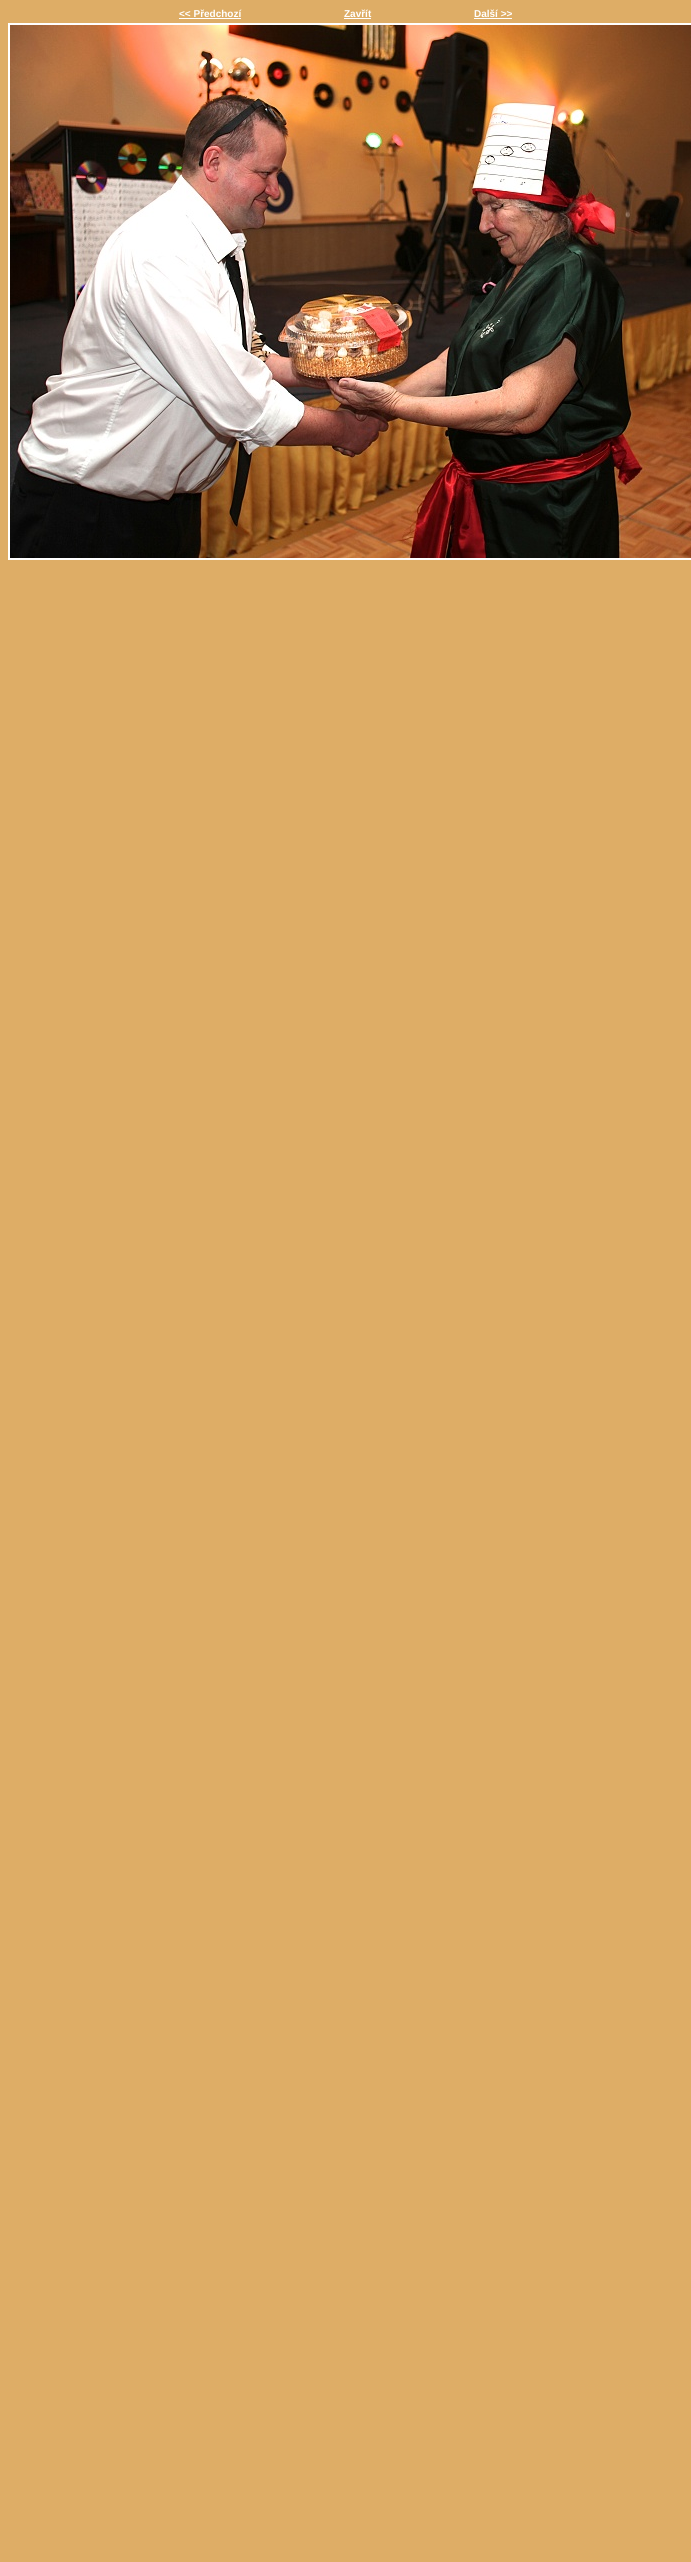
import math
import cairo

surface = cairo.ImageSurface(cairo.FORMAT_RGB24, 691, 2562)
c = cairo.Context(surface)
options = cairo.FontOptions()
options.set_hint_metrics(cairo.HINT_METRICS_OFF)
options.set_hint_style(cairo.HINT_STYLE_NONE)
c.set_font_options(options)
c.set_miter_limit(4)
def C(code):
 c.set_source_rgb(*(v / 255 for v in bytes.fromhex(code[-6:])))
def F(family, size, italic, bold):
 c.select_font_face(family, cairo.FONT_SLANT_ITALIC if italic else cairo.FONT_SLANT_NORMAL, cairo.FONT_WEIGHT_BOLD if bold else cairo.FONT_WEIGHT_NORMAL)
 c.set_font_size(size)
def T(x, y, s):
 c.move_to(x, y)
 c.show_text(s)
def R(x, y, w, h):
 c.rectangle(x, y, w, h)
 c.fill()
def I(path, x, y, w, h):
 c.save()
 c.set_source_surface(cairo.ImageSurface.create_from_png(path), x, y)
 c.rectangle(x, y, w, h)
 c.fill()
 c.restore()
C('dead66')
c.paint()
F('Liberation Sans',10,0,1)
C('ffffff')
T(179,17,'<< Předchozí')
R(179,18,62,1)
T(344,17,'Zavřít')
R(344,18,27,1)
T(474,17,'Další >>')
R(474,18,38,1)
c.rectangle(9,24,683,535)
c.stroke()
I('1.png',10,25,681,533)
surface.write_to_png('o.png')
